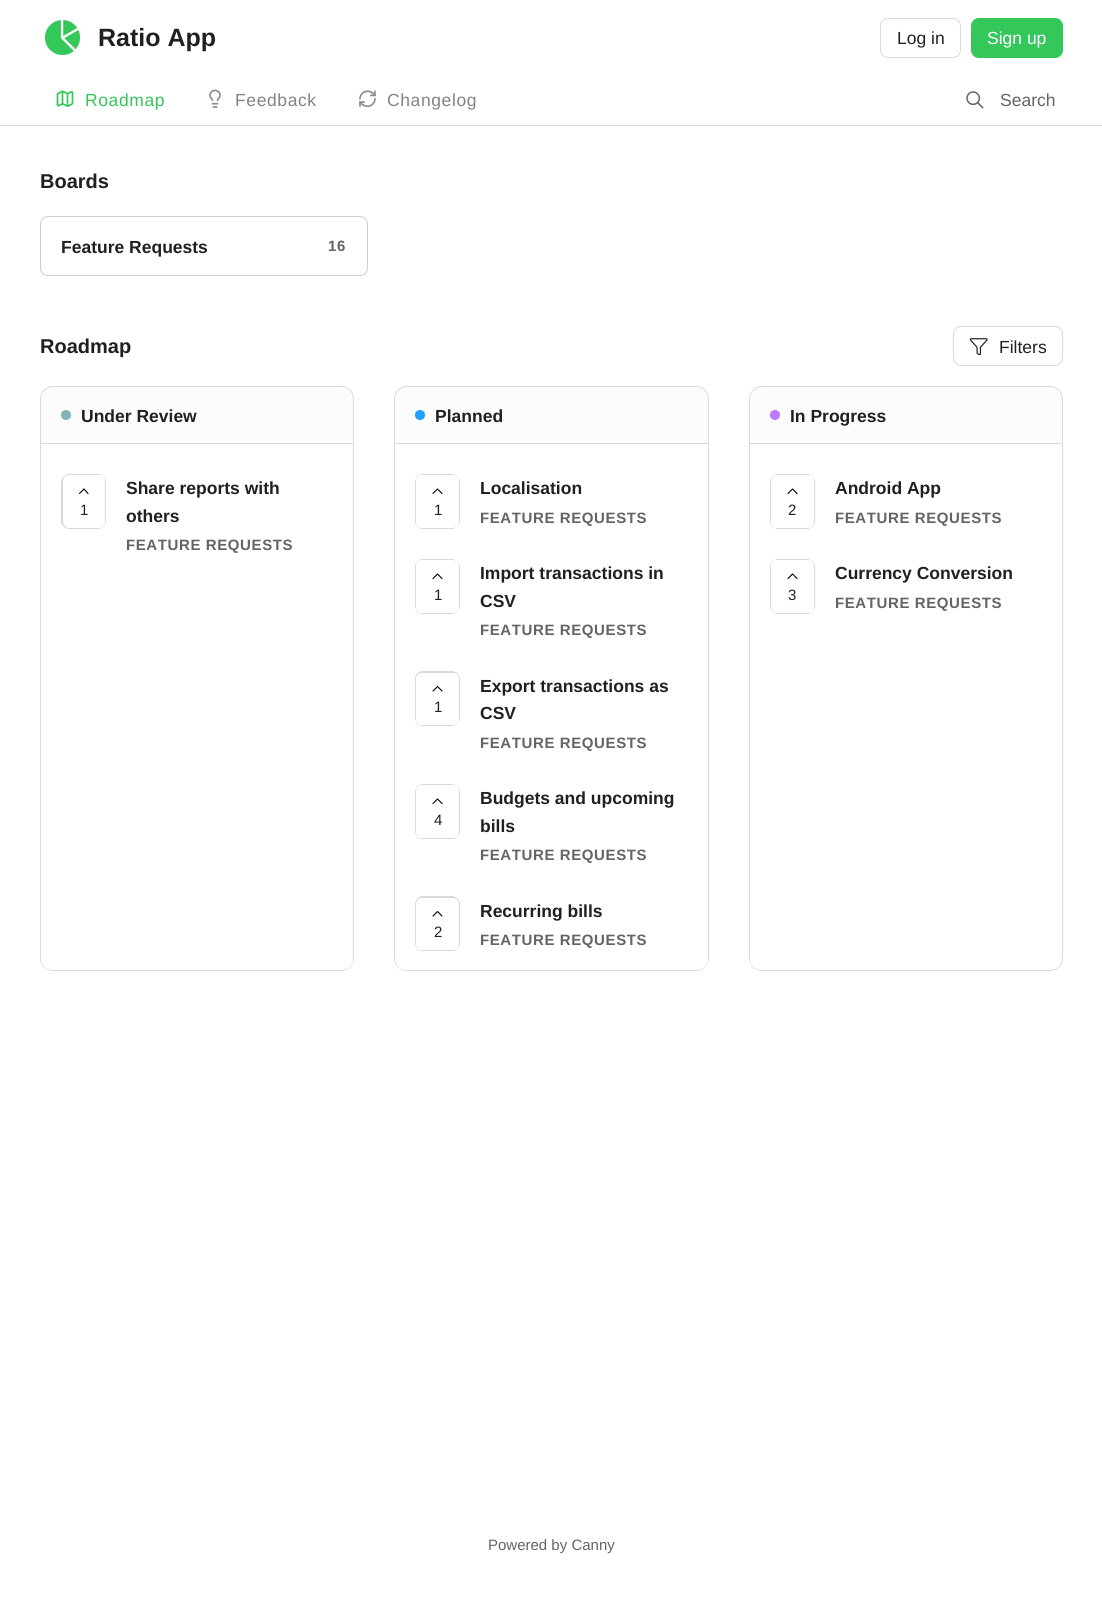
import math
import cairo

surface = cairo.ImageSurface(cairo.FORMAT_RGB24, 1102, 1612)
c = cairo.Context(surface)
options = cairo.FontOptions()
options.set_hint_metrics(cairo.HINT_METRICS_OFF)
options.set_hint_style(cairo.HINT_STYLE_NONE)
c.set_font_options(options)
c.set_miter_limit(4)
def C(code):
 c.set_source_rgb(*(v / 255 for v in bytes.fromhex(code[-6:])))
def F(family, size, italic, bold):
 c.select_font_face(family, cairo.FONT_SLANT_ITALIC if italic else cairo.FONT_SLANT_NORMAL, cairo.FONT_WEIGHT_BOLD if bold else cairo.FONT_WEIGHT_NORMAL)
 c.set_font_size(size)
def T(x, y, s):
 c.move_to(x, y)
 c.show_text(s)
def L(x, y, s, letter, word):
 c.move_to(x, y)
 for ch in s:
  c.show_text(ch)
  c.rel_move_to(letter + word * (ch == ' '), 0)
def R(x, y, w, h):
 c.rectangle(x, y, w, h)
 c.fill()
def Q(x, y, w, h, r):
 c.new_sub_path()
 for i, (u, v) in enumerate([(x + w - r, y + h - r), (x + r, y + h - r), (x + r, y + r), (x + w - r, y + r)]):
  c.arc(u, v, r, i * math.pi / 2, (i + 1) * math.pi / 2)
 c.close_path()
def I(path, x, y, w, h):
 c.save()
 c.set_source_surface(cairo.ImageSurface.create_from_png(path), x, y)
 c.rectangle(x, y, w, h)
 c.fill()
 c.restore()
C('ffffff')
c.paint()
C('d9d9d9')
R(0,125,1102,1)
I('1.png',45,20,35,35)
F('Liberation Sans',25,0,1)
C('202020')
T(98,46,'Ratio App')
Q(880.5,18.5,80,39,7.5)
C('d9d9d9')
c.set_line_width(1)
c.stroke()
F('Liberation Sans',17.5,0,0)
C('202020')
T(897,44,'Log in')
C('34c759')
Q(971.5,18.5,91,39,7.5)
c.fill_preserve()
c.stroke()
C('ffffff')
T(987,44,'Sign up')
I('2.png',56,90,18,17)
C('34c759')
L(85,106,'Roadmap',.6,0)
I('3.png',209,89,12,19)
C('838383')
L(235,106,'Feedback',.6,0)
I('4.png',359,90,17,18)
L(387,106,'Changelog',.6,0)
I('5.png',966,91,18,18)
C('646464')
T(1000,106,'Search')
F('Liberation Sans',20,0,1)
C('202020')
T(40,188,'Boards')
Q(40.5,216.5,327,59,7.5)
C('cecece')
c.stroke()
F('Liberation Sans',17.5,0,1)
C('202020')
T(61,253,'Feature Requests')
F('Liberation Sans',15,0,1)
C('646464')
L(328,251,'16',.6,0)
F('Liberation Sans',20,0,1)
C('202020')
T(40,353,'Roadmap')
Q(953.5,326.5,109,39,7.5)
C('d9d9d9')
c.stroke()
I('6.png',969,338,19,18)
F('Liberation Sans',17.5,0,0)
C('202020')
T(999,353,'Filters')
Q(40.5,386.5,313,584,12.5)
C('d9d9d9')
c.stroke()
c.save()
Q(41,388,312,582,11)
c.clip()
C('fcfcfc')
c.new_path()
c.move_to(54,388)
c.line_to(340,388)
c.curve_to(347,388,353,394,353,401)
c.line_to(353,444)
c.line_to(41,444)
c.line_to(41,401)
c.curve_to(41,394,47,388,54,388)
c.close_path()
c.fill()
c.restore()
R(41,443,312,1)
C('85b5b5')
c.arc(66,415,5,0,2 * math.pi)
c.fill()
F('Liberation Sans',17.5,0,1)
C('202020')
T(81,422,'Under Review')
C('ffffff')
c.new_path()
c.move_to(41,444)
c.line_to(353,444)
c.line_to(353,959)
c.curve_to(353,965,348,970,342,970)
c.line_to(52,970)
c.curve_to(46,970,41,965,41,959)
c.close_path()
c.fill()
C('d9d9d9')
c.new_path()
c.move_to(69,474)
c.line_to(98,474)
c.curve_to(102,474,106,478,106,482)
c.line_to(106,521)
c.curve_to(106,525,102,529,98,529)
c.line_to(69,529)
c.curve_to(65,529,61,525,61,521)
c.line_to(61,482)
c.curve_to(61,478,65,474,69,474)
c.close_path()
c.fill()
C('ffffff')
Q(63,475,42,53,6)
c.fill()
c.new_path()
c.move_to(88,493.5)
c.line_to(84,489)
c.line_to(79.5,493.5)
C('000000')
c.set_line_width(1.1)
c.set_line_cap(cairo.LINE_CAP_ROUND)
c.set_line_join(cairo.LINE_JOIN_ROUND)
c.stroke()
F('Liberation Sans',15,0,0)
C('202020')
T(80,515,'1')
F('Liberation Sans',17.5,0,1)
T(126,494,'Share reports with')
T(126,522,'others')
F('Liberation Sans',15,0,1)
C('646464')
L(126,550,'FEATURE REQUESTS',.6,0)
Q(394.5,386.5,314,584,12.5)
C('d9d9d9')
c.set_line_width(1)
c.set_line_cap(cairo.LINE_CAP_BUTT)
c.set_line_join(cairo.LINE_JOIN_MITER)
c.stroke()
c.save()
Q(395,388,313,582,11)
c.clip()
C('fcfcfc')
c.new_path()
c.move_to(408,388)
c.line_to(695,388)
c.curve_to(702,388,708,394,708,401)
c.line_to(708,444)
c.line_to(395,444)
c.line_to(395,401)
c.curve_to(395,394,401,388,408,388)
c.close_path()
c.fill()
c.restore()
R(395,443,313,1)
C('1fa0ff')
c.arc(420,415,5,0,2 * math.pi)
c.fill()
F('Liberation Sans',17.5,0,1)
C('202020')
T(435,422,'Planned')
C('ffffff')
c.new_path()
c.move_to(395,444)
c.line_to(708,444)
c.line_to(708,959)
c.curve_to(708,965,703,970,697,970)
c.line_to(406,970)
c.curve_to(400,970,395,965,395,959)
c.close_path()
c.fill()
C('d9d9d9')
c.new_path()
c.move_to(423,474)
c.line_to(452,474)
c.curve_to(456,474,460,478,460,482)
c.line_to(460,521)
c.curve_to(460,525,456,529,452,529)
c.line_to(423,529)
c.curve_to(419,529,415,525,415,521)
c.line_to(415,482)
c.curve_to(415,478,419,474,423,474)
c.close_path()
c.fill()
C('ffffff')
Q(416,475,43,53,6)
c.fill()
c.new_path()
c.move_to(442,493.5)
c.line_to(437.5,489)
c.line_to(433,493.5)
C('000000')
c.set_line_width(1.1)
c.set_line_cap(cairo.LINE_CAP_ROUND)
c.set_line_join(cairo.LINE_JOIN_ROUND)
c.stroke()
F('Liberation Sans',15,0,0)
C('202020')
T(434,515,'1')
F('Liberation Sans',17.5,0,1)
T(480,494,'Localisation')
F('Liberation Sans',15,0,1)
C('646464')
L(480,523,'FEATURE REQUESTS',.6,0)
C('d9d9d9')
c.new_path()
c.move_to(423,559)
c.line_to(452,559)
c.curve_to(456,559,460,563,460,567)
c.line_to(460,606)
c.curve_to(460,610,456,614,452,614)
c.line_to(423,614)
c.curve_to(419,614,415,610,415,606)
c.line_to(415,567)
c.curve_to(415,563,419,559,423,559)
c.close_path()
c.fill()
C('ffffff')
Q(416,560,43,53,6)
c.fill()
c.new_path()
c.move_to(442,578.5)
c.line_to(437.5,574)
c.line_to(433,578.5)
C('000000')
c.stroke()
F('Liberation Sans',15,0,0)
C('202020')
T(434,600,'1')
F('Liberation Sans',17.5,0,1)
T(480,579,'Import transactions in')
T(480,607,'CSV')
F('Liberation Sans',15,0,1)
C('646464')
L(480,635,'FEATURE REQUESTS',.6,0)
C('d9d9d9')
c.new_path()
c.move_to(423,671)
c.line_to(452,671)
c.curve_to(456,671,460,675,460,679)
c.line_to(460,718)
c.curve_to(460,722,456,726,452,726)
c.line_to(423,726)
c.curve_to(419,726,415,722,415,718)
c.line_to(415,679)
c.curve_to(415,675,419,671,423,671)
c.close_path()
c.fill()
C('ffffff')
Q(416,673,43,52,6)
c.fill()
c.new_path()
c.move_to(442,691)
c.line_to(437.5,686.5)
c.line_to(433,691)
C('000000')
c.stroke()
F('Liberation Sans',15,0,0)
C('202020')
T(434,712,'1')
F('Liberation Sans',17.5,0,1)
T(480,692,'Export transactions as')
T(480,719,'CSV')
F('Liberation Sans',15,0,1)
C('646464')
L(480,748,'FEATURE REQUESTS',.6,0)
C('d9d9d9')
c.new_path()
c.move_to(423,784)
c.line_to(452,784)
c.curve_to(456,784,460,788,460,792)
c.line_to(460,831)
c.curve_to(460,835,456,839,452,839)
c.line_to(423,839)
c.curve_to(419,839,415,835,415,831)
c.line_to(415,792)
c.curve_to(415,788,419,784,423,784)
c.close_path()
c.fill()
C('ffffff')
Q(416,785,43,53,6)
c.fill()
c.new_path()
c.move_to(442,803.5)
c.line_to(437.5,799)
c.line_to(433,803.5)
C('000000')
c.stroke()
F('Liberation Sans',15,0,0)
C('202020')
T(434,825,'4')
F('Liberation Sans',17.5,0,1)
T(480,804,'Budgets and upcoming')
T(480,832,'bills')
F('Liberation Sans',15,0,1)
C('646464')
L(480,860,'FEATURE REQUESTS',.6,0)
C('d9d9d9')
c.new_path()
c.move_to(423,896)
c.line_to(452,896)
c.curve_to(456,896,460,900,460,904)
c.line_to(460,943)
c.curve_to(460,947,456,951,452,951)
c.line_to(423,951)
c.curve_to(419,951,415,947,415,943)
c.line_to(415,904)
c.curve_to(415,900,419,896,423,896)
c.close_path()
c.fill()
C('ffffff')
Q(416,898,43,52,6)
c.fill()
c.new_path()
c.move_to(442,916)
c.line_to(437.5,911.5)
c.line_to(433,916)
C('000000')
c.stroke()
F('Liberation Sans',15,0,0)
C('202020')
T(434,937,'2')
F('Liberation Sans',17.5,0,1)
T(480,917,'Recurring bills')
F('Liberation Sans',15,0,1)
C('646464')
L(480,945,'FEATURE REQUESTS',.6,0)
Q(749.5,386.5,313,584,12.5)
C('d9d9d9')
c.set_line_width(1)
c.set_line_cap(cairo.LINE_CAP_BUTT)
c.set_line_join(cairo.LINE_JOIN_MITER)
c.stroke()
c.save()
Q(750,388,311,582,11)
c.clip()
C('fcfcfc')
c.new_path()
c.move_to(763,388)
c.line_to(1048,388)
c.curve_to(1055,388,1061,394,1061,401)
c.line_to(1061,444)
c.line_to(750,444)
c.line_to(750,401)
c.curve_to(750,394,756,388,763,388)
c.close_path()
c.fill()
c.restore()
R(750,443,311,1)
C('c17aff')
c.arc(775,415,5,0,2 * math.pi)
c.fill()
F('Liberation Sans',17.5,0,1)
C('202020')
T(790,422,'In Progress')
C('ffffff')
c.new_path()
c.move_to(750,444)
c.line_to(1061,444)
c.line_to(1061,959)
c.curve_to(1061,965,1056,970,1050,970)
c.line_to(761,970)
c.curve_to(755,970,750,965,750,959)
c.close_path()
c.fill()
C('d9d9d9')
c.new_path()
c.move_to(778,474)
c.line_to(807,474)
c.curve_to(811,474,815,478,815,482)
c.line_to(815,521)
c.curve_to(815,525,811,529,807,529)
c.line_to(778,529)
c.curve_to(774,529,770,525,770,521)
c.line_to(770,482)
c.curve_to(770,478,774,474,778,474)
c.close_path()
c.fill()
C('ffffff')
Q(771,475,43,53,6)
c.fill()
c.new_path()
c.move_to(797,493.5)
c.line_to(792.5,489)
c.line_to(788,493.5)
C('000000')
c.set_line_width(1.1)
c.set_line_cap(cairo.LINE_CAP_ROUND)
c.set_line_join(cairo.LINE_JOIN_ROUND)
c.stroke()
F('Liberation Sans',15,0,0)
C('202020')
T(788,515,'2')
F('Liberation Sans',17.5,0,1)
T(835,494,'Android App')
F('Liberation Sans',15,0,1)
C('646464')
L(835,523,'FEATURE REQUESTS',.6,0)
C('d9d9d9')
c.new_path()
c.move_to(778,559)
c.line_to(807,559)
c.curve_to(811,559,815,563,815,567)
c.line_to(815,606)
c.curve_to(815,610,811,614,807,614)
c.line_to(778,614)
c.curve_to(774,614,770,610,770,606)
c.line_to(770,567)
c.curve_to(770,563,774,559,778,559)
c.close_path()
c.fill()
C('ffffff')
Q(771,560,43,53,6)
c.fill()
c.new_path()
c.move_to(797,578.5)
c.line_to(792.5,574)
c.line_to(788,578.5)
C('000000')
c.stroke()
F('Liberation Sans',15,0,0)
C('202020')
T(788,600,'3')
F('Liberation Sans',17.5,0,1)
T(835,579,'Currency Conversion')
F('Liberation Sans',15,0,1)
C('646464')
L(835,608,'FEATURE REQUESTS',.6,0)
F('Liberation Sans',15,0,0)
T(488,1550,'Powered by Canny')
surface.write_to_png('o.png')
